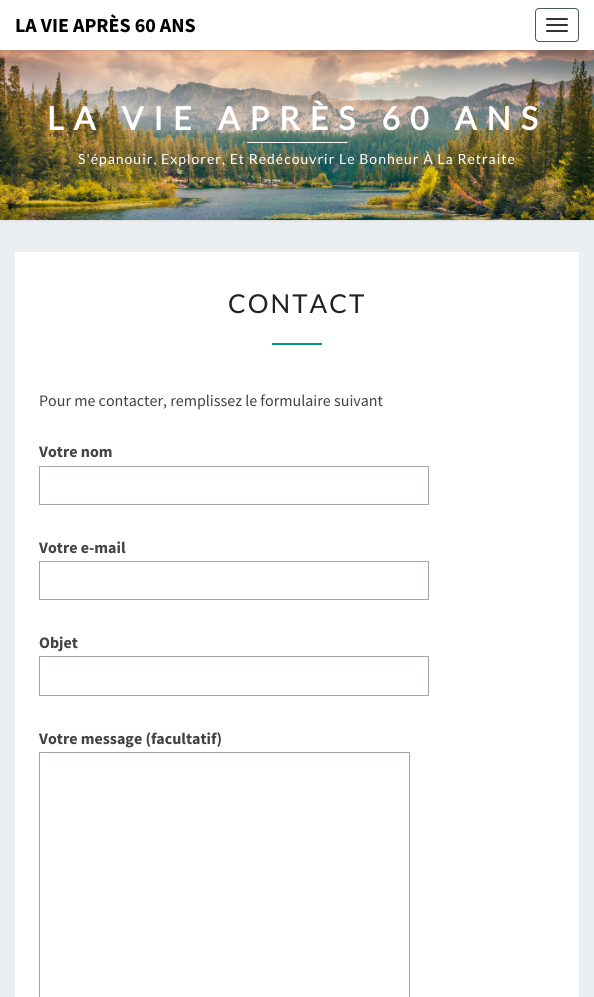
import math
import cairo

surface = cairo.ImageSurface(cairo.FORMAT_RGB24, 594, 997)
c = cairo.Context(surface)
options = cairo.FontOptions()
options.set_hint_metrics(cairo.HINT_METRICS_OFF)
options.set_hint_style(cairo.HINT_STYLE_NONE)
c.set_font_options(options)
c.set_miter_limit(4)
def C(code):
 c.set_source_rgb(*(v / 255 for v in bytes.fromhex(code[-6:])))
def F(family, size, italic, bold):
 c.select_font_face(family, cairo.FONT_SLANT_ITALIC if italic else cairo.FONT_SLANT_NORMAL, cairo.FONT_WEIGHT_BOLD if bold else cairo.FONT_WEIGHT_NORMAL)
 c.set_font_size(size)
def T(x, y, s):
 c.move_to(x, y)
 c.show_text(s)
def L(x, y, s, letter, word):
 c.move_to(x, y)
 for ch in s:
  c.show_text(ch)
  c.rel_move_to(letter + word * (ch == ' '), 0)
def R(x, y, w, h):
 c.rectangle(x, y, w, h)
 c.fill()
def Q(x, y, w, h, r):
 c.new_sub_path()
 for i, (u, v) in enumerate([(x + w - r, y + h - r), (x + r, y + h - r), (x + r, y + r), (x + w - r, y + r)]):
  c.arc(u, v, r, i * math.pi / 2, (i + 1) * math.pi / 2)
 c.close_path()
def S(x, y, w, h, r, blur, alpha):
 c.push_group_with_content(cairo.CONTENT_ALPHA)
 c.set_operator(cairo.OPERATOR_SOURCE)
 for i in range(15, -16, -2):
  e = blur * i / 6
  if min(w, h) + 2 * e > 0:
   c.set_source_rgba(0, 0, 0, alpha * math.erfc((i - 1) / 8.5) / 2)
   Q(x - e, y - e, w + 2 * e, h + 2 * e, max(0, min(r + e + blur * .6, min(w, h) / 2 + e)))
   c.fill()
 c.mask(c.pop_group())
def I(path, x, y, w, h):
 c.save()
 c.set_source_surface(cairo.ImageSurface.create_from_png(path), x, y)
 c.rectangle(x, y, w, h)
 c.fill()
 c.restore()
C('eceff1')
c.paint()
C('b6b6b6')
S(-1,49,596,172,0,1,.3)
I('1.png',0,50,594,170)
C('646464')
S(0,1,594,50,0,.5,.2)
C('ffffff')
R(0,0,594,50)
F('Source Sans Pro',20,0,1)
C('000000')
T(15,32,'LA VIE APRÈS 60 ANS')
Q(535.5,8.5,43,33,3.5)
C('455a64')
c.set_line_width(1)
c.stroke()
C('333333')
Q(546,18,22,2,1)
c.fill()
Q(546,24,22,2,1)
c.fill()
Q(546,30,22,2,1)
c.fill()
F('Lato',32,0,1)
C('ffffff')
L(47,130,'LA VIE APRÈS 60 ANS',10,0)
R(247,142,100,1)
F('Lato',14,0,0)
L(78,164,'S\'épanouir, Explorer, Et Redécouvrir Le Bonheur À La Retraite',1,0)
R(15,252,564,745)
F('Lato',26,0,0)
C('212121')
L(228,313,'CONTACT',2,0)
C('009688')
R(272,343,50,2)
F('Source Sans Pro',16,0,0)
C('424242')
T(39,406,'Pour me contacter, remplissez le formulaire suivant')
F('Source Sans Pro',16,0,1)
T(39,457,'Votre nom')
c.rectangle(39.5,466.5,389,38)
C('aaa1a8')
c.stroke()
C('424242')
T(39,553,'Votre e-mail')
c.rectangle(39.5,561.5,389,38)
C('aaa1a8')
c.stroke()
C('424242')
T(39,648,'Objet')
c.rectangle(39.5,656.5,389,39)
C('aaa1a8')
c.stroke()
C('424242')
T(39,744,'Votre message (facultatif)')
c.rectangle(39.5,752.5,370,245)
C('aaa1a8')
c.stroke()
surface.write_to_png('o.png')
